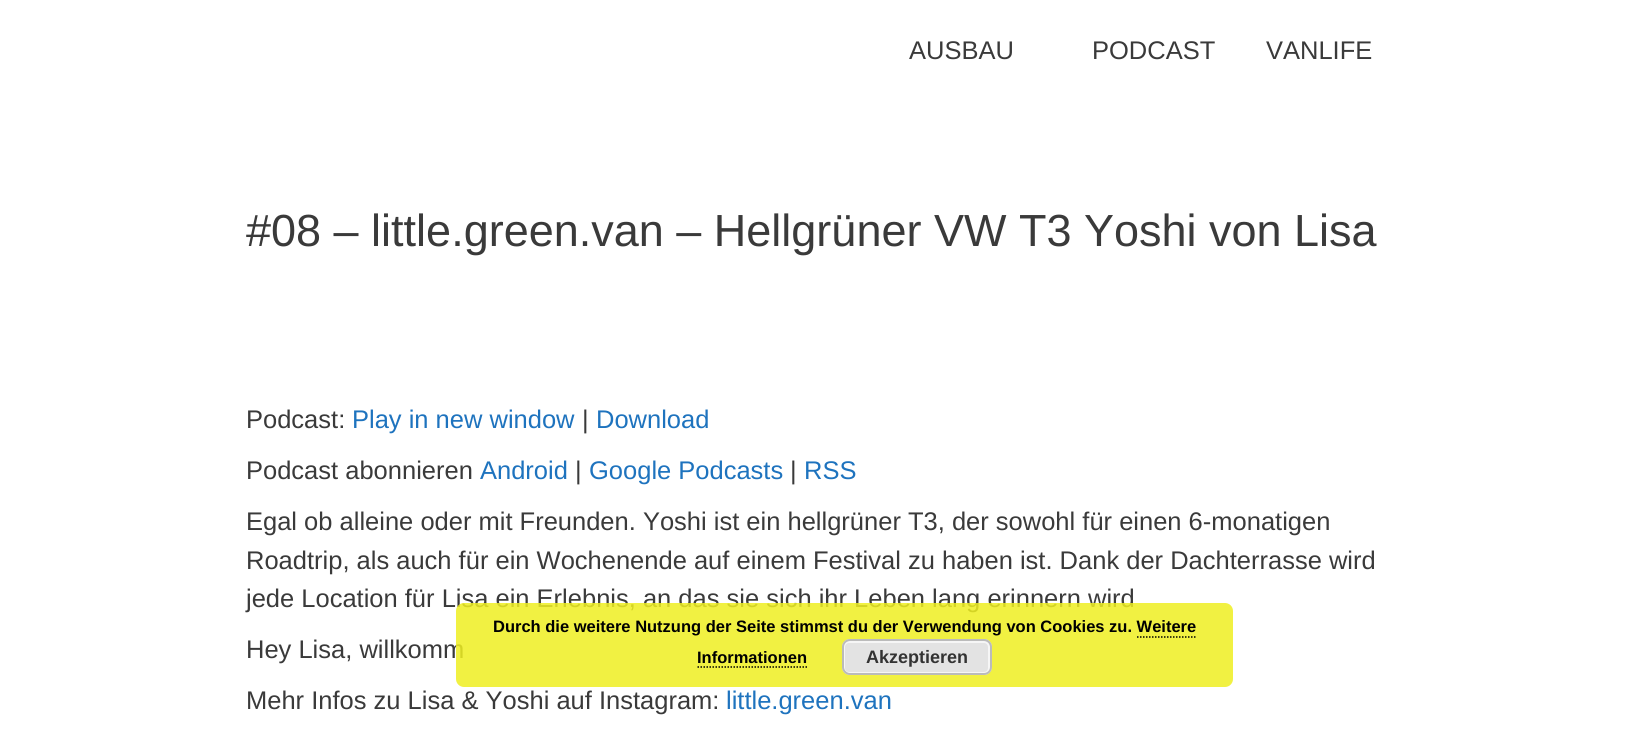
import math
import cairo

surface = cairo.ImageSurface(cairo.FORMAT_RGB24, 1644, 731)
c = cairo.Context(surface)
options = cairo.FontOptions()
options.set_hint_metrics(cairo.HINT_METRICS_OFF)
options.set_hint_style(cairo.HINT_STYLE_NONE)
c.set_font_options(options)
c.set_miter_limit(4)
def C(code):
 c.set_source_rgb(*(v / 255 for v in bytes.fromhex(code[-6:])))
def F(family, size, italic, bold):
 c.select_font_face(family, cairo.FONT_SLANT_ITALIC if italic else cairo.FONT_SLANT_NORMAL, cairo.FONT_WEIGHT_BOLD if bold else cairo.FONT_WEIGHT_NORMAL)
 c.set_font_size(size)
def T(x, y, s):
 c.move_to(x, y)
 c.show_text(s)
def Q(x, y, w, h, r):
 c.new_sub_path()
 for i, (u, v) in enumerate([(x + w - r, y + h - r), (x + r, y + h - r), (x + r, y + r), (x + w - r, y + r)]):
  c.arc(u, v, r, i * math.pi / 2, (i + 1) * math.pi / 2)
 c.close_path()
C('ffffff')
c.paint()
F('Liberation Sans',25.5,0,0)
C('3a3a3a')
T(909,59,'AUSBAU')
T(1092,59,'PODCAST')
T(1266,59,'VANLIFE')
F('Liberation Sans',45,0,0)
T(246,246,'#08 – little.green.van – Hellgrüner VW T3 Yoshi von Lisa')
F('Liberation Sans',25.5,0,0)
T(246,428,'Podcast:')
C('1e73be')
T(352,428,'Play in new window')
C('3a3a3a')
T(582,428,'|')
C('1e73be')
T(596,428,'Download')
C('3a3a3a')
T(246,479,'Podcast abonnieren')
C('1e73be')
T(480,479,'Android')
C('3a3a3a')
T(575,479,'|')
C('1e73be')
T(589,479,'Google Podcasts')
C('3a3a3a')
T(790,479,'|')
C('1e73be')
T(804,479,'RSS')
C('3a3a3a')
T(246,530,'Egal ob alleine oder mit Freunden. Yoshi ist ein hellgrüner T3, der sowohl für einen 6-monatigen')
T(246,569,'Roadtrip, als auch für ein Wochenende auf einem Festival zu haben ist. Dank der Dachterrasse wird')
T(246,607,'jede Location für Lisa ein Erlebnis, an das sie sich ihr Leben lang erinnern wird')
T(246,658,'Hey Lisa, willkomm')
T(246,709,'Mehr Infos zu Lisa & Yoshi auf Instagram:')
C('1e73be')
T(726,709,'little.green.van')
c.set_source_rgba(0.933,0.933,0.133,0.85)
Q(456,603,777,84,8)
c.fill()
F('Liberation Sans',16.5,0,1)
C('000000')
T(493,632,'Durch die weitere Nutzung der Seite stimmst du der Verwendung von Cookies zu. Weitere')
T(697,663,'Informationen')
c.new_path()
c.move_to(1137,637)
c.line_to(1195.5,637)
c.set_line_width(1.5)
c.set_dash([1.5,1.5])
c.stroke()
c.new_path()
c.move_to(697.5,667)
c.line_to(807,667)
c.stroke()
C('e3e3e3')
Q(842,639,150,36,8)
c.fill()
Q(844,642,145,31,5)
C('f6f6f6')
c.set_line_width(2)
c.set_dash([])
c.stroke()
Q(843,640,148,34,7)
C('bbbbbb')
c.stroke()
F('Liberation Sans',18,0,1)
C('333333')
T(866,663,'Akzeptieren')
surface.write_to_png('o.png')
